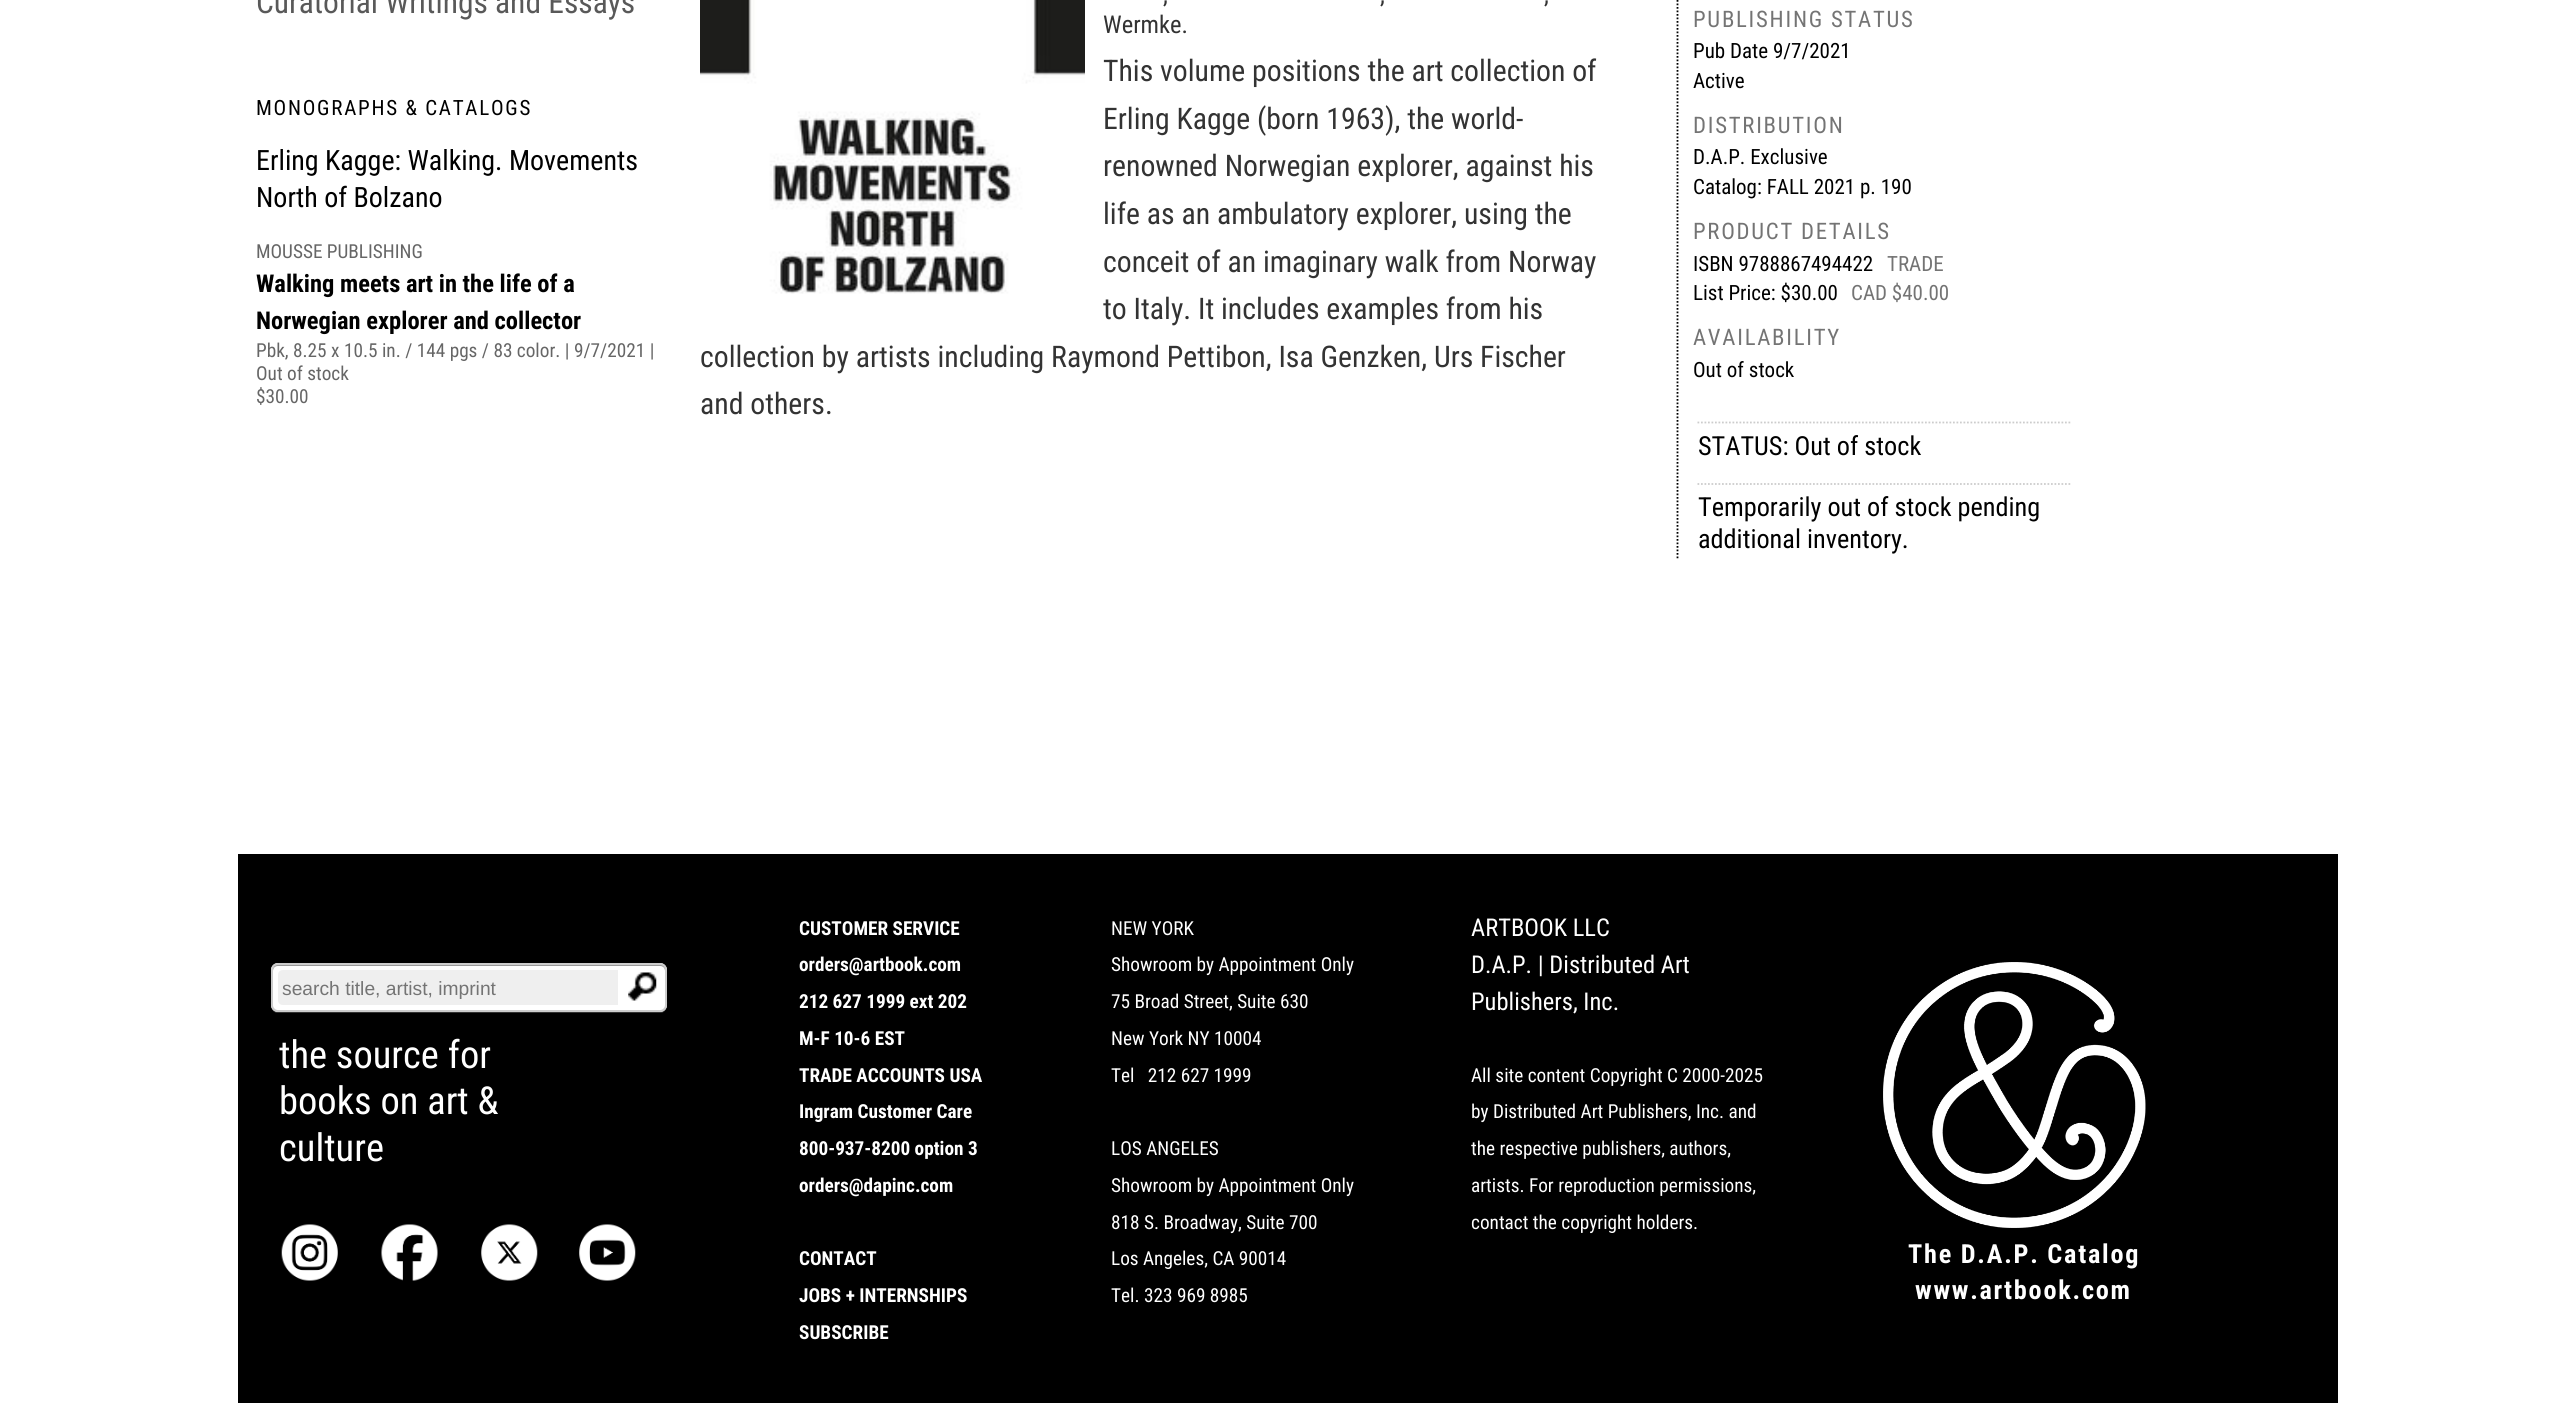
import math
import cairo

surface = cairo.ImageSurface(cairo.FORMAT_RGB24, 2575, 1403)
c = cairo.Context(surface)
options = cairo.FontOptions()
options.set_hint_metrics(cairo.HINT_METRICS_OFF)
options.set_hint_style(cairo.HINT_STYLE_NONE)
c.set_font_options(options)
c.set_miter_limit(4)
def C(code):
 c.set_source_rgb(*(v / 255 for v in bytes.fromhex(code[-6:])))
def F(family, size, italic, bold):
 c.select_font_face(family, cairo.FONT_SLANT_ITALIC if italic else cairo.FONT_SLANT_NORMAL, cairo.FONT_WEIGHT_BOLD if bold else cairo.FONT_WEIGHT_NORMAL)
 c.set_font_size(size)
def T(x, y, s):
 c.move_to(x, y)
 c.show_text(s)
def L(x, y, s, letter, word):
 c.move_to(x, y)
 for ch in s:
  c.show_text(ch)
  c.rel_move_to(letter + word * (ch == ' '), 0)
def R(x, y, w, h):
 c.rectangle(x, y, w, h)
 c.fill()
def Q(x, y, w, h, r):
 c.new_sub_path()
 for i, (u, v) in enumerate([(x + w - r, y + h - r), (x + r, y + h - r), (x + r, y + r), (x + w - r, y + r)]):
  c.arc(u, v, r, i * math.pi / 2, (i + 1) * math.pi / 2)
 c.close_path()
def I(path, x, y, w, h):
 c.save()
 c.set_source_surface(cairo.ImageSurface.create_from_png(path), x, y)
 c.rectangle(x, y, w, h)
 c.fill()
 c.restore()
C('ffffff')
c.paint()
F('Roboto Condensed',31.5,0,0)
C('595959')
T(256,13,'Curatorial Writings and Essays')
F('Roboto Condensed',21,0,0)
C('000000')
L(256,115,'MONOGRAPHS & CATALOGS',1.75,0)
F('Roboto Condensed',28,0,0)
T(256,170,'Erling Kagge: Walking. Movements')
T(256,207,'North of Bolzano')
F('Roboto Condensed',19.25,0,0)
C('666666')
T(256,258,'MOUSSE PUBLISHING')
F('Roboto Condensed',24.5,0,1)
C('000000')
T(256,292,'Walking meets art in the life of a')
T(256,329,'Norwegian explorer and collector')
F('Roboto Condensed',19.25,0,0)
C('666666')
T(256,357,'Pbk, 8.25 x 10.5 in. / 144 pgs / 83 color. | 9/7/2021 |')
T(256,380,'Out of stock')
T(256,403,'$30.00')
I('1.png',700,0,385,294)
F('Roboto Condensed',24.5,0,0)
C('333333')
T(1163,3,',')
T(1380,3,',')
T(1544,3,',')
T(1103,33,'Wermke.')
F('Roboto Condensed',29.75,0,0)
T(1103,81,'This volume positions the art collection of')
T(1103,129,'Erling Kagge (born 1963), the world-')
T(1103,176,'renowned Norwegian explorer, against his')
T(1103,224,'life as an ambulatory explorer, using the')
T(1103,272,'conceit of an imaginary walk from Norway')
T(1103,319,'to Italy. It includes examples from his')
T(700,367,'collection by artists including Raymond Pettibon, Isa Genzken, Urs Fischer')
T(700,414,'and others.')
c.new_path()
c.move_to(1677.5,-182)
c.line_to(1677.5,560)
C('000000')
c.set_line_width(1.8)
c.set_dash([1.75,1.75])
c.stroke()
F('Roboto Condensed',22.75,0,0)
C('747474')
L(1693,27,'PUBLISHING STATUS',1.75,0)
F('Roboto Condensed',21,0,0)
C('000000')
T(1693,58,'Pub Date 9/7/2021')
T(1693,88,'Active')
F('Roboto Condensed',22.75,0,0)
C('747474')
L(1693,133,'DISTRIBUTION',1.75,0)
F('Roboto Condensed',21,0,0)
C('000000')
T(1693,164,'D.A.P. Exclusive')
T(1693,194,'Catalog: FALL 2021 p. 190')
F('Roboto Condensed',22.75,0,0)
C('747474')
L(1693,239,'PRODUCT DETAILS',1.75,0)
F('Roboto Condensed',21,0,0)
C('000000')
T(1693,271,'ISBN 9788867494422')
C('747474')
T(1887,271,'TRADE')
C('000000')
T(1693,300,'List Price: $30.00')
C('747474')
T(1851,300,'CAD $40.00')
F('Roboto Condensed',22.75,0,0)
L(1693,345,'AVAILABILITY',1.75,0)
F('Roboto Condensed',21,0,0)
C('000000')
T(1693,377,'Out of stock')
c.new_path()
c.move_to(1697.5,422.5)
c.line_to(2072,422.5)
C('cccccc')
c.stroke()
F('Roboto Condensed',26.25,0,0)
C('000000')
T(1698,455,'STATUS: Out of stock')
c.new_path()
c.move_to(1697.5,484)
c.line_to(2072,484)
C('cccccc')
c.stroke()
C('000000')
T(1698,516,'Temporarily out of stock pending')
T(1698,548,'additional inventory.')
R(238,854,2100,549)
C('333333')
c.new_path()
c.move_to(271,969)
c.line_to(271,994)
c.curve_to(271,1000,269,1013,278,1013)
c.line_to(660,1013)
c.curve_to(669,1013,667,1000,667,994)
c.line_to(667,969)
c.line_to(667,993)
c.curve_to(667,999,669,1011,660,1012)
c.line_to(278,1012)
c.curve_to(269,1011,271,999,271,993)
c.close_path()
c.fill()
C('ffffff')
Q(271,963,396,49,7)
c.fill()
C('999999')
c.new_path()
c.move_to(278,966)
c.line_to(660,966)
c.curve_to(663,966,665,968,665,971)
c.line_to(665,969)
c.curve_to(665,966,663,964,660,964)
c.line_to(278,964)
c.curve_to(275,964,273,966,273,969)
c.line_to(273,971)
c.curve_to(273,968,275,966,278,966)
c.close_path()
c.fill()
Q(272,964,394,47,6)
C('cccccc')
c.set_line_width(2)
c.set_dash([])
c.stroke()
C('efefef')
c.new_path()
c.move_to(283,970)
c.line_to(618,970)
c.line_to(618,1005)
c.line_to(283,1005)
c.curve_to(280,1005,278,1003,278,1000)
c.line_to(278,975)
c.curve_to(278,972,280,970,283,970)
c.close_path()
c.fill()
F('Liberation Sans',19.25,0,0)
C('747474')
T(282,995,'search title, artist, imprint')
I('2.png',628,972,29,29)
F('Roboto Condensed',38.5,0,0)
C('ffffff')
T(279,1068,'the source for')
T(279,1114,'books on art &')
T(279,1161,'culture')
I('3.png',281,1224,57,57)
I('4.png',381,1224,57,57)
I('5.png',481,1224,57,57)
I('6.png',579,1224,57,57)
F('Roboto Condensed',19.25,0,1)
T(799,935,'CUSTOMER SERVICE')
T(799,971,'orders@artbook.com')
T(799,1008,'212 627 1999 ext 202')
T(799,1045,'M-F 10-6 EST')
T(799,1082,'TRADE ACCOUNTS USA')
T(799,1118,'Ingram Customer Care')
T(799,1155,'800-937-8200 option 3')
T(799,1192,'orders@dapinc.com')
T(799,1265,'CONTACT')
T(799,1302,'JOBS + INTERNSHIPS')
T(799,1339,'SUBSCRIBE')
F('Roboto Condensed',19.25,0,0)
T(1111,935,'NEW YORK')
T(1111,971,'Showroom by Appointment Only')
T(1111,1008,'75 Broad Street, Suite 630')
T(1111,1045,'New York NY 10004')
T(1111,1082,'Tel   212 627 1999')
T(1111,1155,'LOS ANGELES')
T(1111,1192,'Showroom by Appointment Only')
T(1111,1229,'818 S. Broadway, Suite 700')
T(1111,1265,'Los Angeles, CA 90014')
T(1111,1302,'Tel. 323 969 8985')
F('Roboto Condensed',24.5,0,0)
T(1471,936,'ARTBOOK LLC')
T(1471,973,'D.A.P. | Distributed Art')
T(1471,1010,'Publishers, Inc.')
F('Roboto Condensed',19.25,0,0)
T(1471,1082,'All site content Copyright C 2000-2025')
T(1471,1118,'by Distributed Art Publishers, Inc. and')
T(1471,1155,'the respective publishers, authors,')
T(1471,1192,'artists. For reproduction permissions,')
T(1471,1229,'contact the copyright holders.')
I('7.png',1883,962,263,266)
F('Roboto Condensed',26.25,0,1)
L(1908,1263,'The D.A.P. Catalog',1.75,0)
L(1915,1299,'www.artbook.com',1.75,0)
surface.write_to_png('o.png')
